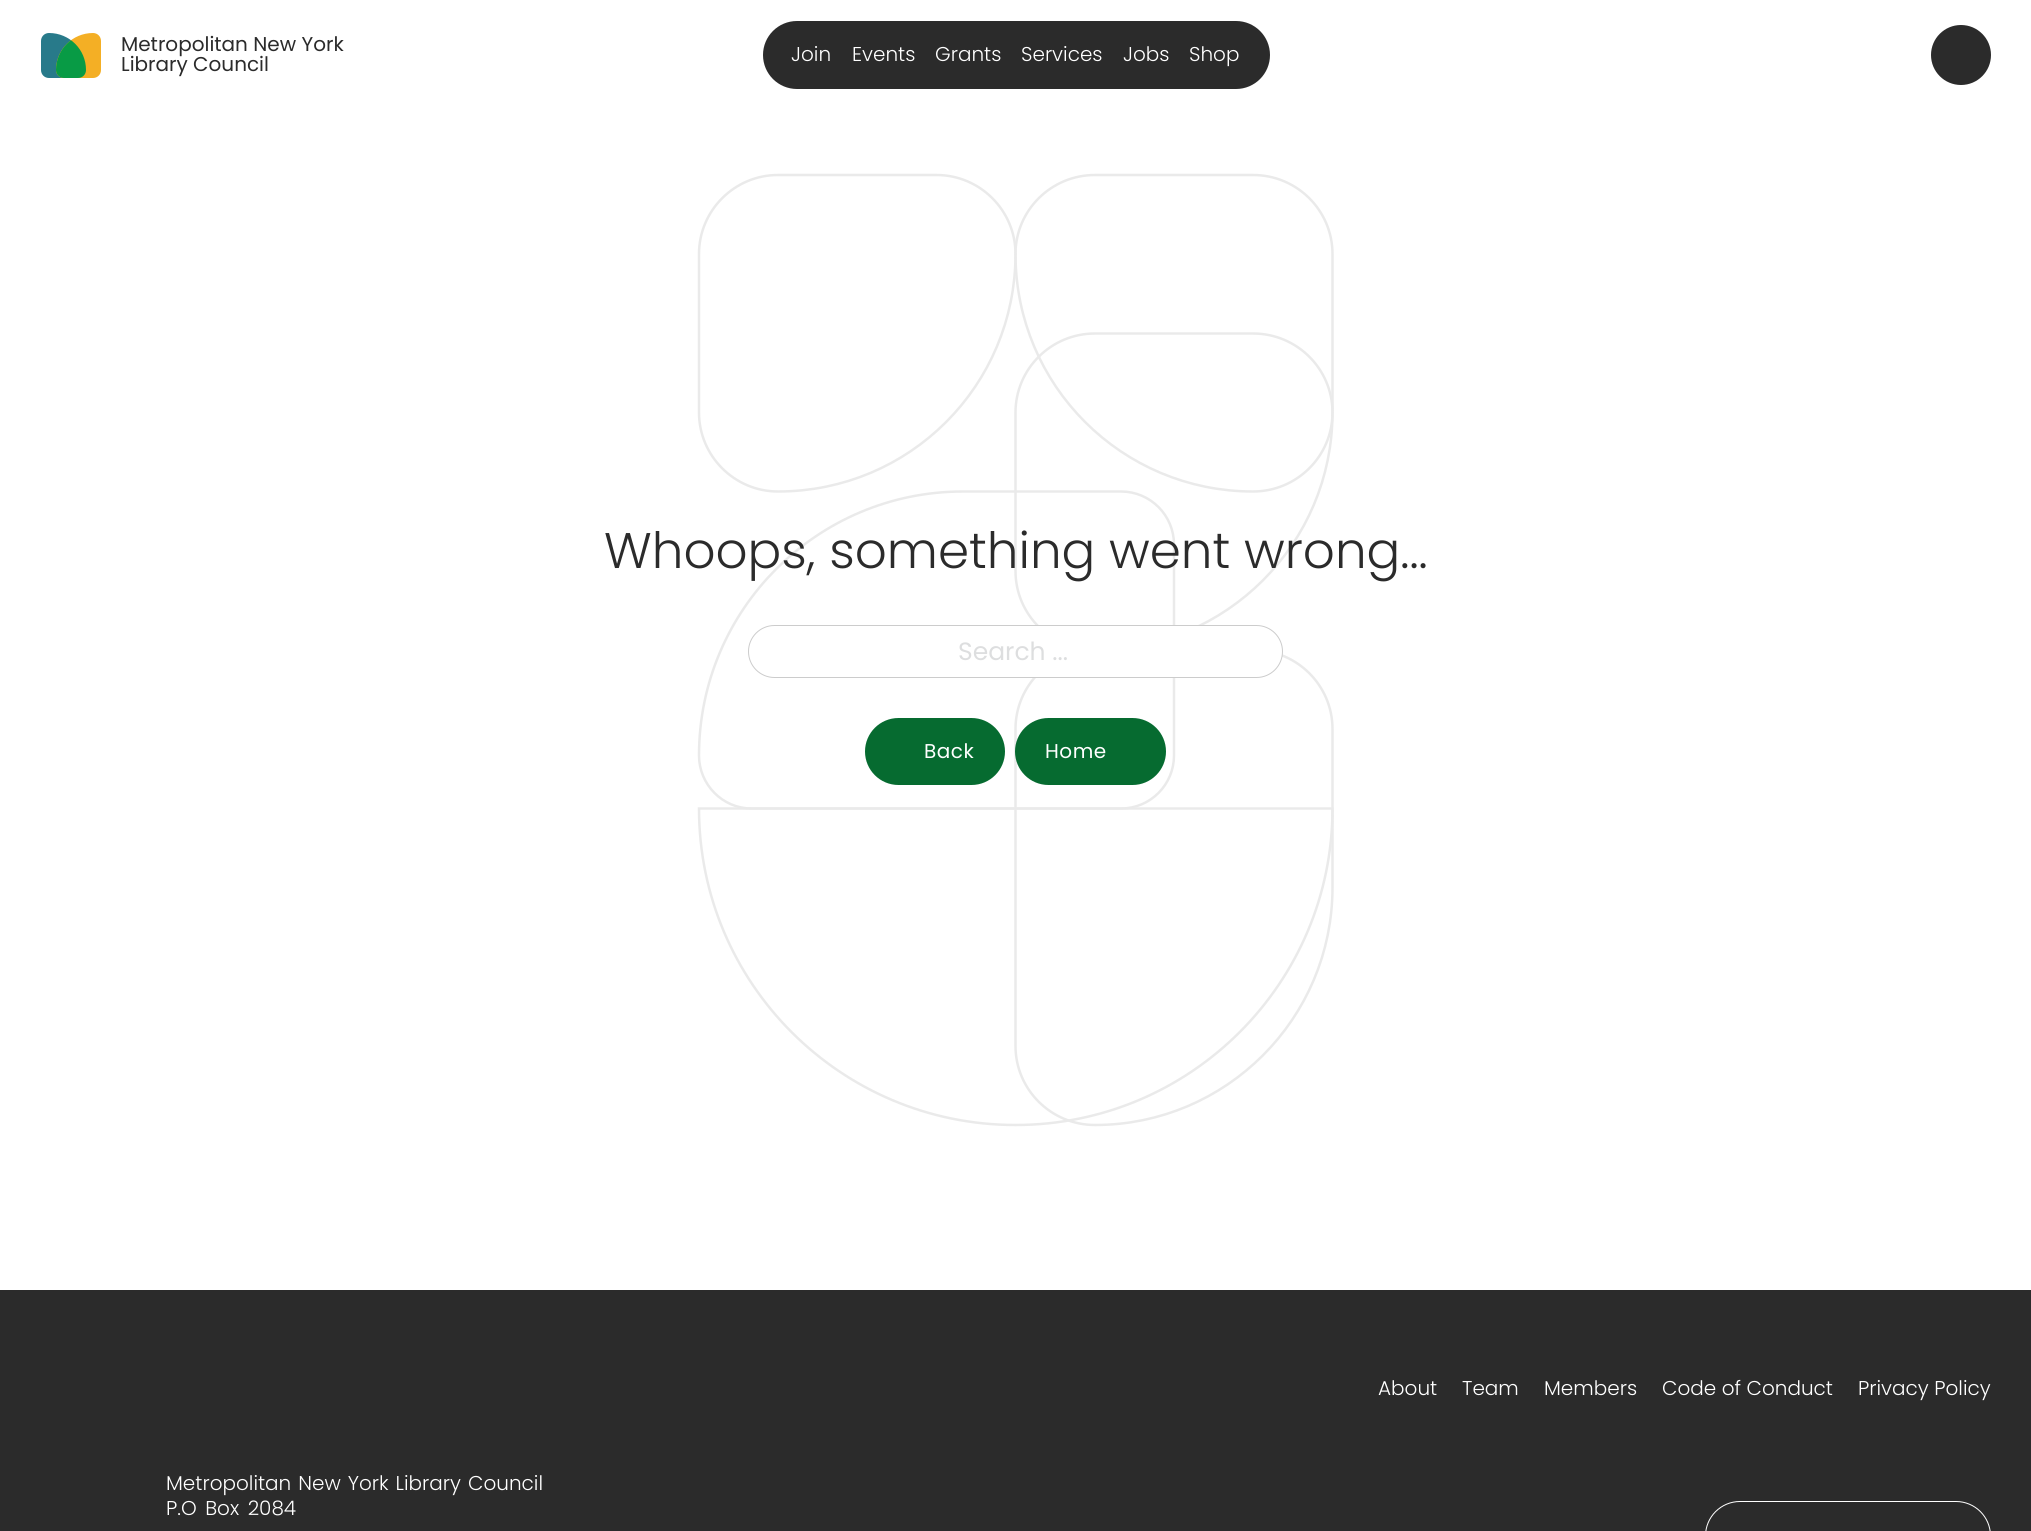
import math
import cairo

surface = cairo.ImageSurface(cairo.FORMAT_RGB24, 2031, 1531)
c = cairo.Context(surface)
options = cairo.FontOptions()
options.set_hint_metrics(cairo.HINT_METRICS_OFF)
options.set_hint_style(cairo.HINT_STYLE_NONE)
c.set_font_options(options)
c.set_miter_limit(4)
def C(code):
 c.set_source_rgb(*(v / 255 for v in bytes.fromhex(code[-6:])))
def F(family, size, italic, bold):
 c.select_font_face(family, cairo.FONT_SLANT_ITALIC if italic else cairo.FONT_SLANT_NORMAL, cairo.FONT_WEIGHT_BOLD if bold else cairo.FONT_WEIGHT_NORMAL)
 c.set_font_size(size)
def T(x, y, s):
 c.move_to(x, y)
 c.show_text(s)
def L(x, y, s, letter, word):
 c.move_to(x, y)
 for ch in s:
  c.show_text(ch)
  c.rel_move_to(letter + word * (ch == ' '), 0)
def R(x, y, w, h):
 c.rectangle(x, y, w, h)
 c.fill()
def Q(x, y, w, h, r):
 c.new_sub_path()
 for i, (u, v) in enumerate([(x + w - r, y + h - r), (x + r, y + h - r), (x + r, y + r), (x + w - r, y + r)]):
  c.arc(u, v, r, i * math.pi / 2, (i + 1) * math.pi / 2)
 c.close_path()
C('ffffff')
c.paint()
C('287a8a')
c.new_path()
c.move_to(49,33)
c.curve_to(69.5,33,86,49.5,86,70)
c.curve_to(86,74.5,82.5,78,78,78)
c.line_to(49,78)
c.curve_to(44.5,78,41,74.5,41,70)
c.line_to(41,41)
c.curve_to(41,36.5,44.5,33,49,33)
c.close_path()
c.fill()
C('f4af25')
c.new_path()
c.move_to(93,33)
c.curve_to(97.5,33,101,36.5,101,41)
c.line_to(101,70)
c.curve_to(101,74.5,97.5,78,93,78)
c.line_to(64,78)
c.curve_to(59.5,78,56,74.5,56,70)
c.curve_to(56,49.5,72.5,33,93,33)
c.close_path()
c.fill()
c.save()
c.rectangle(56,40,15,38)
c.clip()
C('089b45')
c.new_path()
c.move_to(93,33)
c.curve_to(97.5,33,101,36.5,101,41)
c.line_to(101,70)
c.curve_to(101,74.5,97.5,78,93,78)
c.line_to(64,78)
c.curve_to(59.5,78,56,74.5,56,70)
c.curve_to(56,49.5,72.5,33,93,33)
c.close_path()
c.fill()
c.restore()
c.save()
c.rectangle(71,40,15,38)
c.clip()
C('089b45')
c.new_path()
c.move_to(49,33)
c.curve_to(69.5,33,86,49.5,86,70)
c.curve_to(86,74.5,82.5,78,78,78)
c.line_to(49,78)
c.curve_to(44.5,78,41,74.5,41,70)
c.line_to(41,41)
c.curve_to(41,36.5,44.5,33,49,33)
c.close_path()
c.fill()
c.restore()
F('Poppins',20,0,0)
C('2b2b2b')
T(121,51,'Metropolitan New York')
T(121,71,'Library Council')
Q(763,21,507,68,34)
c.fill()
F('Poppins Light',20,0,0)
C('ffffff')
T(791,61,'Join')
T(852,61,'Events')
T(935,61,'Grants')
T(1021,61,'Services')
T(1123,61,'Jobs')
T(1189,61,'Shop')
C('2b2b2b')
c.new_path()
c.arc(1961,55,30,0,2 * math.pi)
c.fill()
c.new_path()
c.move_to(778,491.5)
c.curve_to(909.5,491.5,1015.5,385.5,1015.5,254)
c.curve_to(1015.5,210.5,980,175,936.5,175)
c.line_to(778,175)
c.curve_to(734.5,175,699,210.5,699,254)
c.line_to(699,412.5)
c.curve_to(699,456,734.5,491.5,778,491.5)
c.close_path()
C('eaeaea')
c.set_line_width(2.5)
c.stroke()
c.new_path()
c.move_to(1253,491.5)
c.curve_to(1122,491.5,1015.5,385.5,1015.5,254)
c.curve_to(1015.5,210.5,1051,175,1095,175)
c.line_to(1253,175)
c.curve_to(1297,175,1332.5,210.5,1332.5,254)
c.line_to(1332.5,412.5)
c.curve_to(1332.5,456,1297,491.5,1253,491.5)
c.close_path()
c.stroke()
c.new_path()
c.move_to(1121,491.5)
c.line_to(963,491.5)
c.curve_to(817,491.5,699,610,699,755.5)
c.curve_to(699,784.5,722.5,808.5,751.5,808.5)
c.line_to(1121,808.5)
c.curve_to(1150.5,808.5,1174,784.5,1174,755.5)
c.line_to(1174,544.5)
c.curve_to(1174,515.5,1150.5,491.5,1121,491.5)
c.close_path()
c.stroke()
c.new_path()
c.move_to(1095,1125)
c.curve_to(1226,1125,1332.5,1018.5,1332.5,887.5)
c.line_to(1332.5,729)
c.curve_to(1332.5,685.5,1297,650,1253,650)
c.line_to(1095,650)
c.curve_to(1051,650,1015.5,685.5,1015.5,729)
c.line_to(1015.5,1046)
c.curve_to(1015.5,1089.5,1051,1125,1095,1125)
c.close_path()
c.stroke()
c.new_path()
c.move_to(1095,650)
c.curve_to(1226,650,1332.5,543.5,1332.5,412.5)
c.curve_to(1332.5,369,1297,333.5,1253,333.5)
c.line_to(1095,333.5)
c.curve_to(1051,333.5,1015.5,369,1015.5,412.5)
c.line_to(1015.5,571)
c.curve_to(1015.5,614.5,1051,650,1095,650)
c.close_path()
c.stroke()
c.new_path()
c.move_to(1015.5,1125)
c.curve_to(840.5,1125,699,983,699,808.5)
c.line_to(1332.5,808.5)
c.curve_to(1332.5,983,1190.5,1125,1015.5,1125)
c.close_path()
c.stroke()
F('Poppins Light',50,0,0)
C('2b2b2b')
T(604,568,'Whoops, something went wrong...')
C('ffffff')
Q(748.5,625.5,534,52,26)
c.fill_preserve()
C('cccccc')
c.set_line_width(1)
c.stroke()
F('Poppins',25,0,0)
C('dddedf')
T(958,660,'Search ...')
C('066b30')
Q(865,718,140,67,33.5)
c.fill()
F('Poppins',20,0,0)
C('ffffff')
L(924,758,'Back',.5,0)
C('066b30')
Q(1015,718,151,67,33.5)
c.fill()
C('ffffff')
L(1045,758,'Home',.5,0)
C('2b2b2b')
R(0,1290,2031,241)
F('Poppins Light',20,0,0)
C('ffffff')
T(1378,1395,'About')
T(1462,1395,'Team')
T(1544,1395,'Members')
T(1662,1395,'Code of Conduct')
T(1858,1395,'Privacy Policy')
Q(1705.5,1501.5,285,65,34.5)
c.stroke()
L(166,1490,'Metropolitan New York Library Council',0,1.5)
L(166,1515,'P.O Box 2084',0,3)
surface.write_to_png('o.png')
